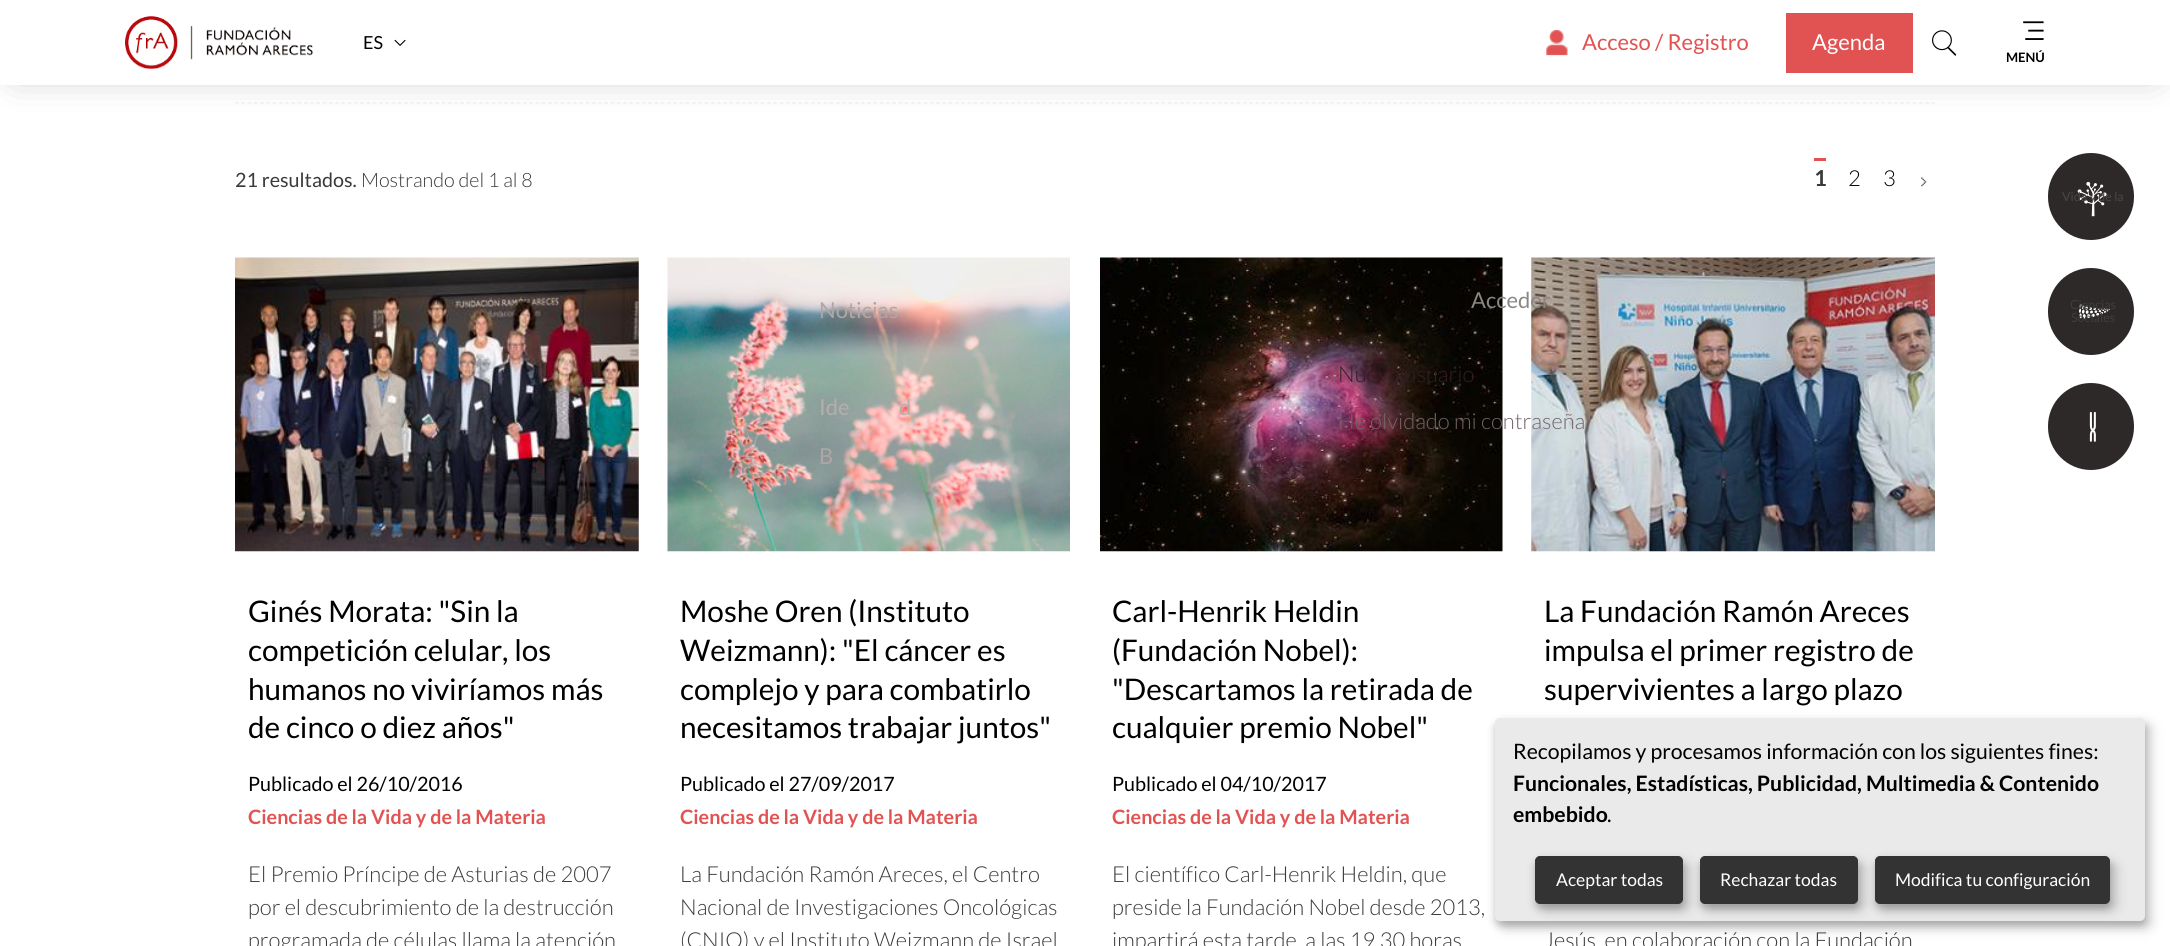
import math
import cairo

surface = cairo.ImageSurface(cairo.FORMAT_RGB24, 2170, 946)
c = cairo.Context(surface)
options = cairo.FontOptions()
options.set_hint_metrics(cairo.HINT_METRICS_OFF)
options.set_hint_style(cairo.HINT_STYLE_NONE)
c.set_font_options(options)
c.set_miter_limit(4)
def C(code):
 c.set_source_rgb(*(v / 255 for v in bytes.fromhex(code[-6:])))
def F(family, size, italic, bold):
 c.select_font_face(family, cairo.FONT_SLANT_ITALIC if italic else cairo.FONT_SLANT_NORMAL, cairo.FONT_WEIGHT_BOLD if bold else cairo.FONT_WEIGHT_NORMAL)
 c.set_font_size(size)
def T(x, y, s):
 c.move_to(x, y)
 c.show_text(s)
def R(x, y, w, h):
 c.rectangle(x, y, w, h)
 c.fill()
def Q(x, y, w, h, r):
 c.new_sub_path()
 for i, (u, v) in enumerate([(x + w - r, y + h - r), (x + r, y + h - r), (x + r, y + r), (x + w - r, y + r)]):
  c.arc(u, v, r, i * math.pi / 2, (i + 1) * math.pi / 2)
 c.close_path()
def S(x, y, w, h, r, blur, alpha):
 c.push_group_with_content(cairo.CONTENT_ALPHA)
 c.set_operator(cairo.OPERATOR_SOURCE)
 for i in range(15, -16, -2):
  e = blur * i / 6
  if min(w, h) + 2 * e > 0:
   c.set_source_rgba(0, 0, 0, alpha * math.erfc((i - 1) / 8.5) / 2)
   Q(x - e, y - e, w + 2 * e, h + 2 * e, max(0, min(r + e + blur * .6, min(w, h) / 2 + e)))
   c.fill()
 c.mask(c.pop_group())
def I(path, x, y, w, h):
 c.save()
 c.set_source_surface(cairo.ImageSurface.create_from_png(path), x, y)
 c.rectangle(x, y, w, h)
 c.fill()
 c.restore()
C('ffffff')
c.paint()
c.new_path()
c.move_to(235,103)
c.line_to(1935,103)
C('eeeeee')
c.set_line_width(1.2)
c.set_dash([3.75,2.51])
c.stroke()
C('000000')
S(16,19,2138,52,0,19.5,.3)
C('ffffff')
R(0,0,2170,85)
I('1.png',125,16,188,53)
F('Lato',18,0,0)
C('000000')
T(363,49,'ES')
I('2.png',394,39,12,7)
I('3.png',1546,30,22,26)
F('Lato',22,0,0)
C('e15353')
T(1582,50,'Acceso / Registro')
I('9.png',1100,257,403,295)
I('10.png',1531,257,404,295)
C('8a8682')
T(1471,308,'Acceder')
F('Lato Light',22,0,0)
C('351d24')
T(1338,382,'Nuevo usuario')
C('736267')
T(1338,429,'He olvidado mi contraseña')
C('e15353')
R(1786,13,127,60)
F('Lato',22,0,0)
C('ffffff')
T(1812,50,'Agenda')
I('4.png',1932,30,25,26)
I('5.png',2023,21,21,19)
F('Lato',13,0,1)
C('000000')
T(2006,62,'MENÚ')
F('Lato',19.75,0,0)
C('3a3a39')
T(235,187,'21 resultados.')
F('Lato Light',19.75,0,0)
T(361,187,'Mostrando del 1 al 8')
C('e15353')
R(1814,158,12,3)
F('Lato',22,0,1)
C('3a3a39')
T(1814,186,'1')
F('Lato Light',22,0,0)
C('000000')
T(1848,186,'2')
T(1883,186,'3')
I('6.png',1921,177,6,10)
I('7.png',235,257,404,295)
F('Lato',29.75,0,0)
T(248,622,'Ginés Morata: "Sin la')
T(248,661,'competición celular, los')
T(248,700,'humanos no viviríamos más')
T(248,738,'de cinco o diez años"')
F('Lato',19.75,0,0)
T(248,791,'Publicado el 26/10/2016')
F('Lato',19.75,0,1)
C('e15353')
T(248,824,'Ciencias de la Vida y de la Materia')
F('Lato Light',22,0,0)
C('3a3a39')
T(248,882,'El Premio Príncipe de Asturias de 2007')
T(248,915,'por el descubrimiento de la destrucción')
T(248,948,'programada de células llama la atención')
I('8.png',667,257,403,295)
F('Lato',29.75,0,0)
C('000000')
T(680,622,'Moshe Oren (Instituto')
T(680,661,'Weizmann): "El cáncer es')
T(680,700,'complejo y para combatirlo')
T(680,738,'necesitamos trabajar juntos"')
F('Lato',19.75,0,0)
T(680,791,'Publicado el 27/09/2017')
F('Lato',19.75,0,1)
C('e15353')
T(680,824,'Ciencias de la Vida y de la Materia')
F('Lato Light',22,0,0)
C('3a3a39')
T(680,882,'La Fundación Ramón Areces, el Centro')
T(680,915,'Nacional de Investigaciones Oncológicas')
T(680,948,'(CNIO) y el Instituto Weizmann de Israel')
F('Lato',29.75,0,0)
C('000000')
T(1112,622,'Carl-Henrik Heldin')
T(1112,661,'(Fundación Nobel):')
T(1112,700,'"Descartamos la retirada de')
T(1112,738,'cualquier premio Nobel"')
F('Lato',19.75,0,0)
T(1112,791,'Publicado el 04/10/2017')
F('Lato',19.75,0,1)
C('e15353')
T(1112,824,'Ciencias de la Vida y de la Materia')
F('Lato Light',22,0,0)
C('3a3a39')
T(1112,882,'El científico Carl-Henrik Heldin, que')
T(1112,915,'preside la Fundación Nobel desde 2013,')
T(1112,948,'impartirá esta tarde, a las 19,30 horas')
F('Lato',29.75,0,0)
C('000000')
T(1544,622,'La Fundación Ramón Areces')
T(1544,661,'impulsa el primer registro de')
T(1544,700,'supervivientes a largo plazo')
F('Lato Light',22,0,0)
C('3a3a39')
T(1544,948,'Jesús, en colaboración con la Fundación')
C('2d2929')
Q(2048,153,86,87,43)
c.fill()
I('11.png',2077,181,30,36)
F('Lato',12.5,0,0)
C('4a4646')
T(2062,201,'Vida y de la')
C('2d2929')
Q(2048,268,86,87,43)
c.fill()
I('12.png',2079,304,31,15)
C('413d3d')
T(2070,309,'Ciencias')
T(2071,322,'Sociales')
C('2d2929')
Q(2048,383,86,87,43)
c.fill()
I('13.png',2089,411,7,31)
F('Lato',22,0,0)
C('b1a5a6')
T(819,318,'Noticias')
C('b4afaa')
T(819,415,'Ide')
T(899,415,'d')
C('b1a5a6')
T(819,464,'B')
C('000000')
S(1501,724,650,204,5,6,.19)
S(1495,723,650,203,5,4,.2)
C('eaeaea')
Q(1495,718,650,203,5)
c.fill()
F('Lato',21.25,0,0)
C('000000')
T(1513,759,'Recopilamos y procesamos información con los siguientes fines:')
F('Lato',21.25,0,1)
T(1513,791,'Funcionales, Estadísticas, Publicidad, Multimedia & Contenido')
T(1513,822,'embebido')
F('Lato',21.25,0,0)
T(1607,822,'.')
C('000000')
S(1881,863,235,47,5,6,.19)
S(1875,861,235,48,5,4,.2)
C('333333')
Q(1875.5,856.5,234,47,4.5)
c.fill_preserve()
c.set_line_width(1)
c.set_dash([])
c.stroke()
C('000000')
S(1706,863,158,47,5,6,.19)
S(1700,861,158,48,5,4,.2)
C('333333')
Q(1700.5,856.5,157,47,4.5)
c.fill_preserve()
c.stroke()
C('000000')
S(1541,863,148,47,5,6,.19)
S(1535,861,148,48,5,4,.2)
C('333333')
Q(1535.5,856.5,147,47,4.5)
c.fill_preserve()
c.stroke()
F('Lato',17.5,0,0)
C('ffffff')
T(1556,886,'Aceptar todas')
T(1720,886,'Rechazar todas')
T(1895,886,'Modifica tu configuración')
surface.write_to_png('o.png')
